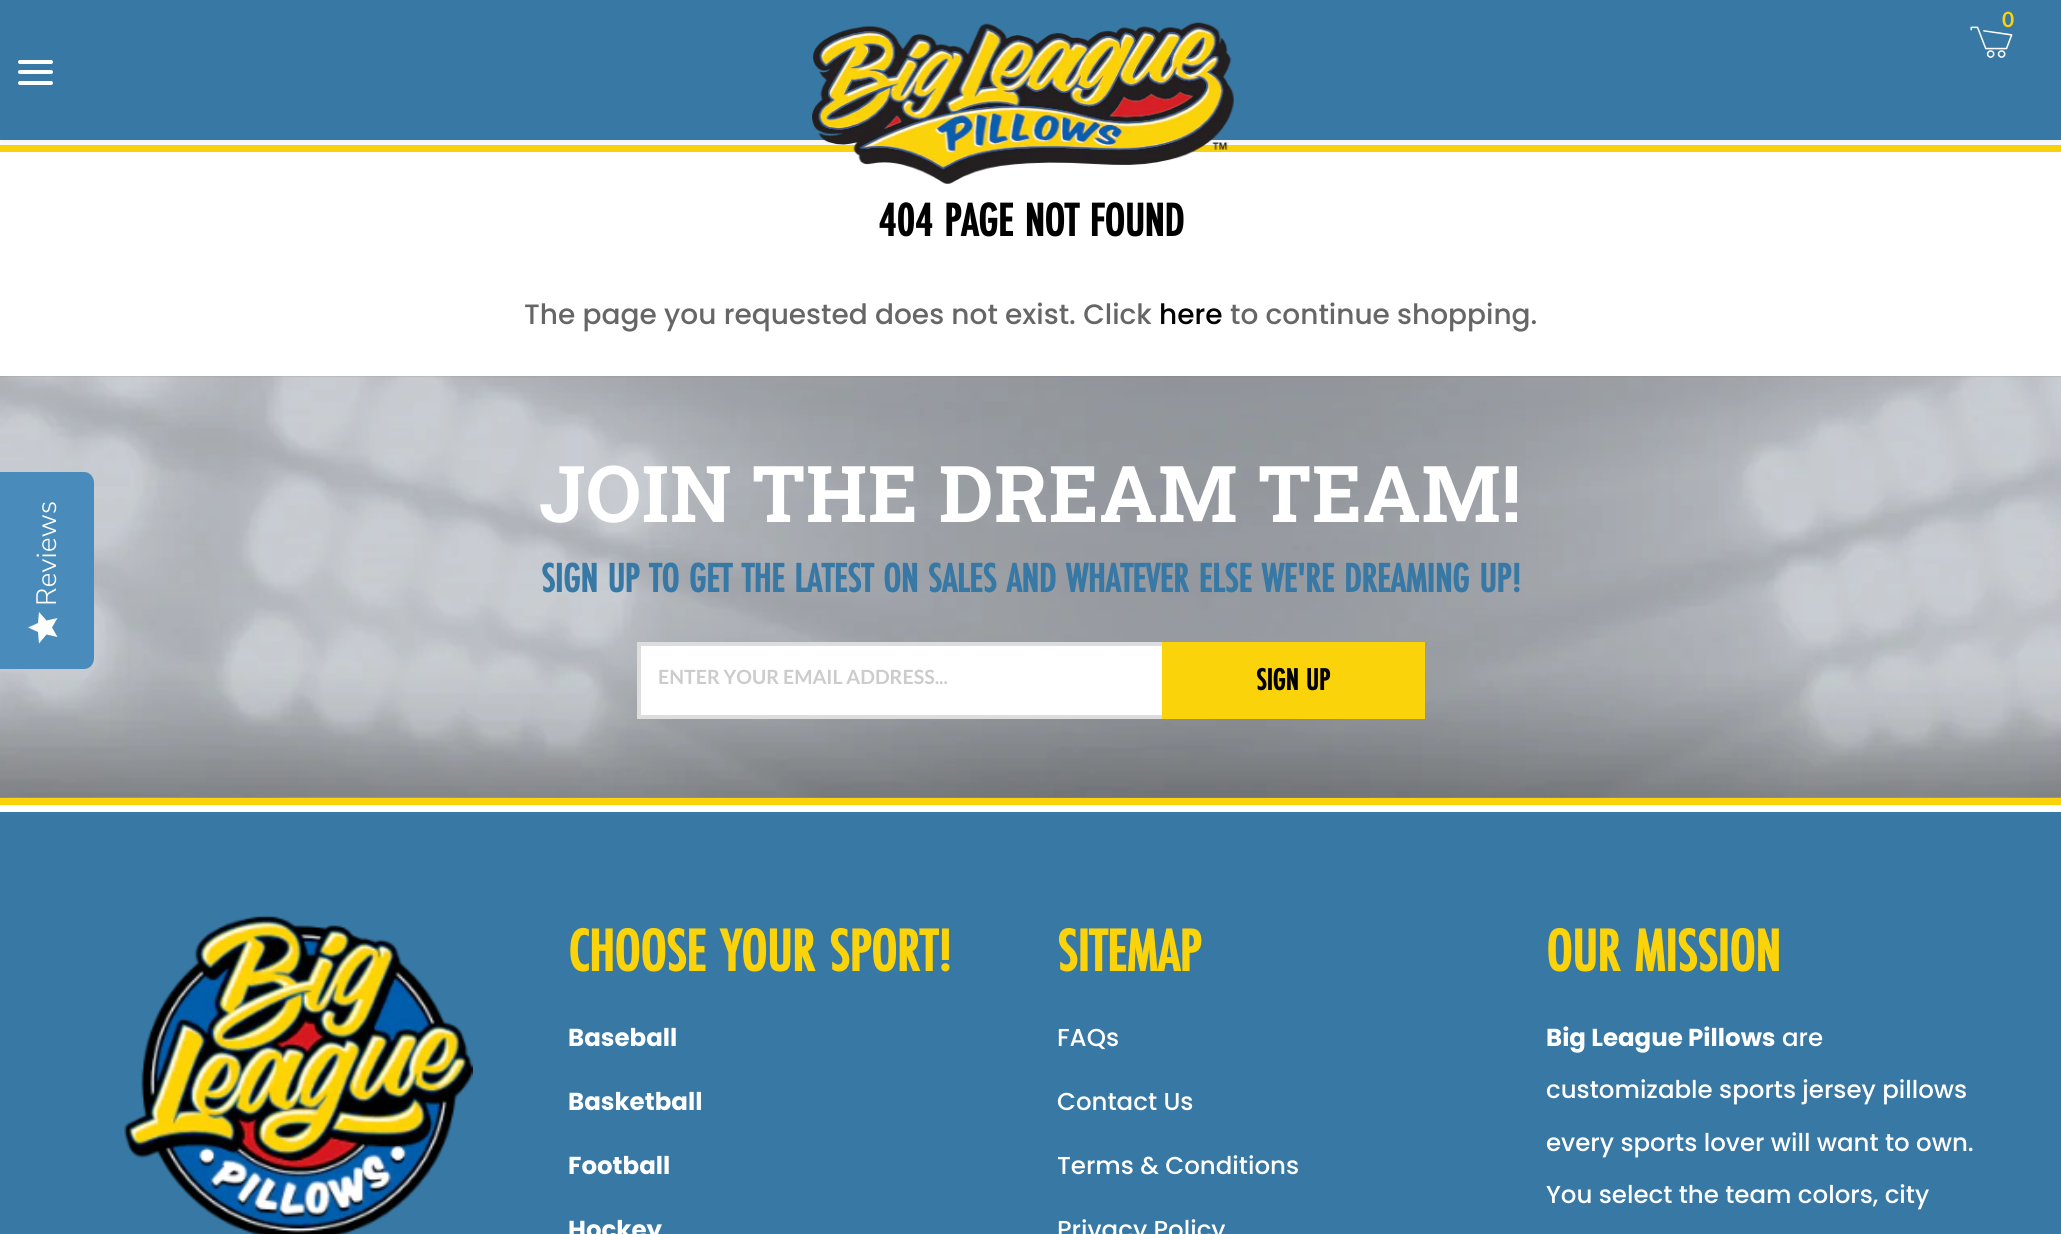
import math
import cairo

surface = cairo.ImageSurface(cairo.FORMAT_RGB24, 2061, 1234)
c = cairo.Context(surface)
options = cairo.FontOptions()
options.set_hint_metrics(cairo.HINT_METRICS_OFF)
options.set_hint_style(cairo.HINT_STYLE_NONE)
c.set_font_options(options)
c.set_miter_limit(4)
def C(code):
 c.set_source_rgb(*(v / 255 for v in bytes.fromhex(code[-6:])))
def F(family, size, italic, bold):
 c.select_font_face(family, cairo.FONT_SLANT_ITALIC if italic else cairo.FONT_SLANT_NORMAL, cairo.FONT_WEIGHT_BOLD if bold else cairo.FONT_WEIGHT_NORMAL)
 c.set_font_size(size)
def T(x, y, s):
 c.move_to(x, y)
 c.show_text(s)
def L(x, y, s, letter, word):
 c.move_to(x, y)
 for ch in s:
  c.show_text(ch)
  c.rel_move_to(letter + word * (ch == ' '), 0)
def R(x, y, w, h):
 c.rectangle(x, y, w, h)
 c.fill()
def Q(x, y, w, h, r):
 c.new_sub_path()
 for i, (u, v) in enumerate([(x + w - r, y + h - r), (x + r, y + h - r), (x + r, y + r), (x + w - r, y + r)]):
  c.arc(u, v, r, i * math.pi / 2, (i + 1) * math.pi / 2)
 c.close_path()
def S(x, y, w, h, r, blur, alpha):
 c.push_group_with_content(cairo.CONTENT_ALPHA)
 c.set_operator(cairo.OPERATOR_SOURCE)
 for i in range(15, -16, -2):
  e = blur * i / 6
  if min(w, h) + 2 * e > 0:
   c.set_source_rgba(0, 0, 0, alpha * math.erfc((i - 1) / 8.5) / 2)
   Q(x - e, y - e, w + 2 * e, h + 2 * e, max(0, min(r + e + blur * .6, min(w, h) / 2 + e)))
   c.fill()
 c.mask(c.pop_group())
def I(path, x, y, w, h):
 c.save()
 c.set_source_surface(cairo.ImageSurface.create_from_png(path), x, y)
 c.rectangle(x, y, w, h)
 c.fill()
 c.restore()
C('ffffff')
c.paint()
I('3.png',0,376,2061,422)
C('498cbc')
c.new_path()
c.move_to(0,669)
c.line_to(0,472)
c.line_to(84,472)
c.curve_to(90,472,94,477,94,483)
c.line_to(94,658)
c.curve_to(94,664,90,669,84,669)
c.close_path()
c.fill()
F('Nunito Sans Light',28,0,0)
C('ffffff')
c.save()
c.translate(56,606)
c.rotate(-90 * math.pi / 180)
T(0,0,'Reviews')
c.restore()
gradient = cairo.LinearGradient(28,643,28,612)
gradient.add_color_stop_rgba(1,0.996,0.996,0.996,1)
gradient.add_color_stop_rgba(1,0.918,0.918,0.918,1)
c.set_source(gradient)
c.new_path()
c.move_to(52,627.5)
c.line_to(57.5,618)
c.line_to(46.5,620.5)
c.line_to(39,612)
c.line_to(38,623)
c.line_to(28,627.5)
c.line_to(38,632)
c.line_to(39,643.5)
c.line_to(46.5,634.5)
c.line_to(57.5,637)
c.close_path()
c.fill()
C('fbd30b')
R(0,145,2061,7)
C('000000')
S(0,4,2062,140,0,5,.05)
C('3878a4')
R(0,0,2061,140)
I('1.png',1970,26,43,32)
F('Lato',21,0,1)
C('fbd30b')
L(2002,27,'0',2,0)
I('2.png',812,22,422,162)
C('ffffff')
Q(18,60,35,4,2)
c.fill()
Q(18,70,35,4,2)
c.fill()
Q(18,81,35,4,2)
c.fill()
F('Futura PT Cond',48,0,1)
C('000000')
T(878,236,'404 PAGE NOT FOUND')
F('Poppins Medium',28,0,0)
C('666666')
T(524,324,'The page you requested does not exist. Click')
C('000000')
T(1159,324,'here')
C('666666')
T(1230,324,'to continue shopping.')
C('3878a4')
R(0,812,2061,422)
C('fbd30b')
R(0,798,2061,7)
F('Roboto Slab',78.4,0,1)
C('ffffff')
L(539,522,'JOIN THE DREAM TEAM!',.75,0)
F('Futura PT Cond',42,0,1)
C('3878a4')
T(541,592,'SIGN UP TO GET THE LATEST ON SALES AND WHATEVER ELSE WE\'RE DREAMING UP!')
C('ffffff')
R(641,646,521,69)
c.rectangle(639,644,784,73)
C('dddddd')
c.set_line_width(4)
c.stroke()
F('Lato',19.6,0,1)
C('cccccc')
T(658,684,'ENTER YOUR EMAIL ADDRESS...')
C('fbd30b')
R(1162,642,263,77)
F('Futura PT Cond',31.5,0,1)
C('000000')
T(1256,690,'SIGN UP')
I('4.png',124,915,349,319)
F('Futura PT Cond',61.25,0,1)
C('fbd30b')
T(568,971,'CHOOSE YOUR SPORT!')
F('Poppins',24.5,0,1)
C('ffffff')
T(568,1046,'Baseball')
T(568,1110,'Basketball')
T(568,1174,'Football')
T(568,1238,'Hockey')
F('Futura PT Cond',61.25,0,1)
C('fbd30b')
T(1057,971,'SITEMAP')
F('Poppins Medium',24.5,0,0)
C('ffffff')
T(1057,1046,'FAQs')
T(1057,1110,'Contact Us')
T(1057,1174,'Terms & Conditions')
T(1057,1238,'Privacy Policy')
F('Futura PT Cond',61.25,0,1)
C('fbd30b')
T(1546,971,'OUR MISSION')
F('Poppins',24.5,0,1)
C('ffffff')
T(1546,1046,'Big League Pillows')
F('Poppins Medium',24.5,0,0)
T(1782,1046,'are')
T(1546,1098,'customizable sports jersey pillows')
T(1546,1151,'every sports lover will want to own.')
T(1546,1203,'You select the team colors, city')
surface.write_to_png('o.png')
